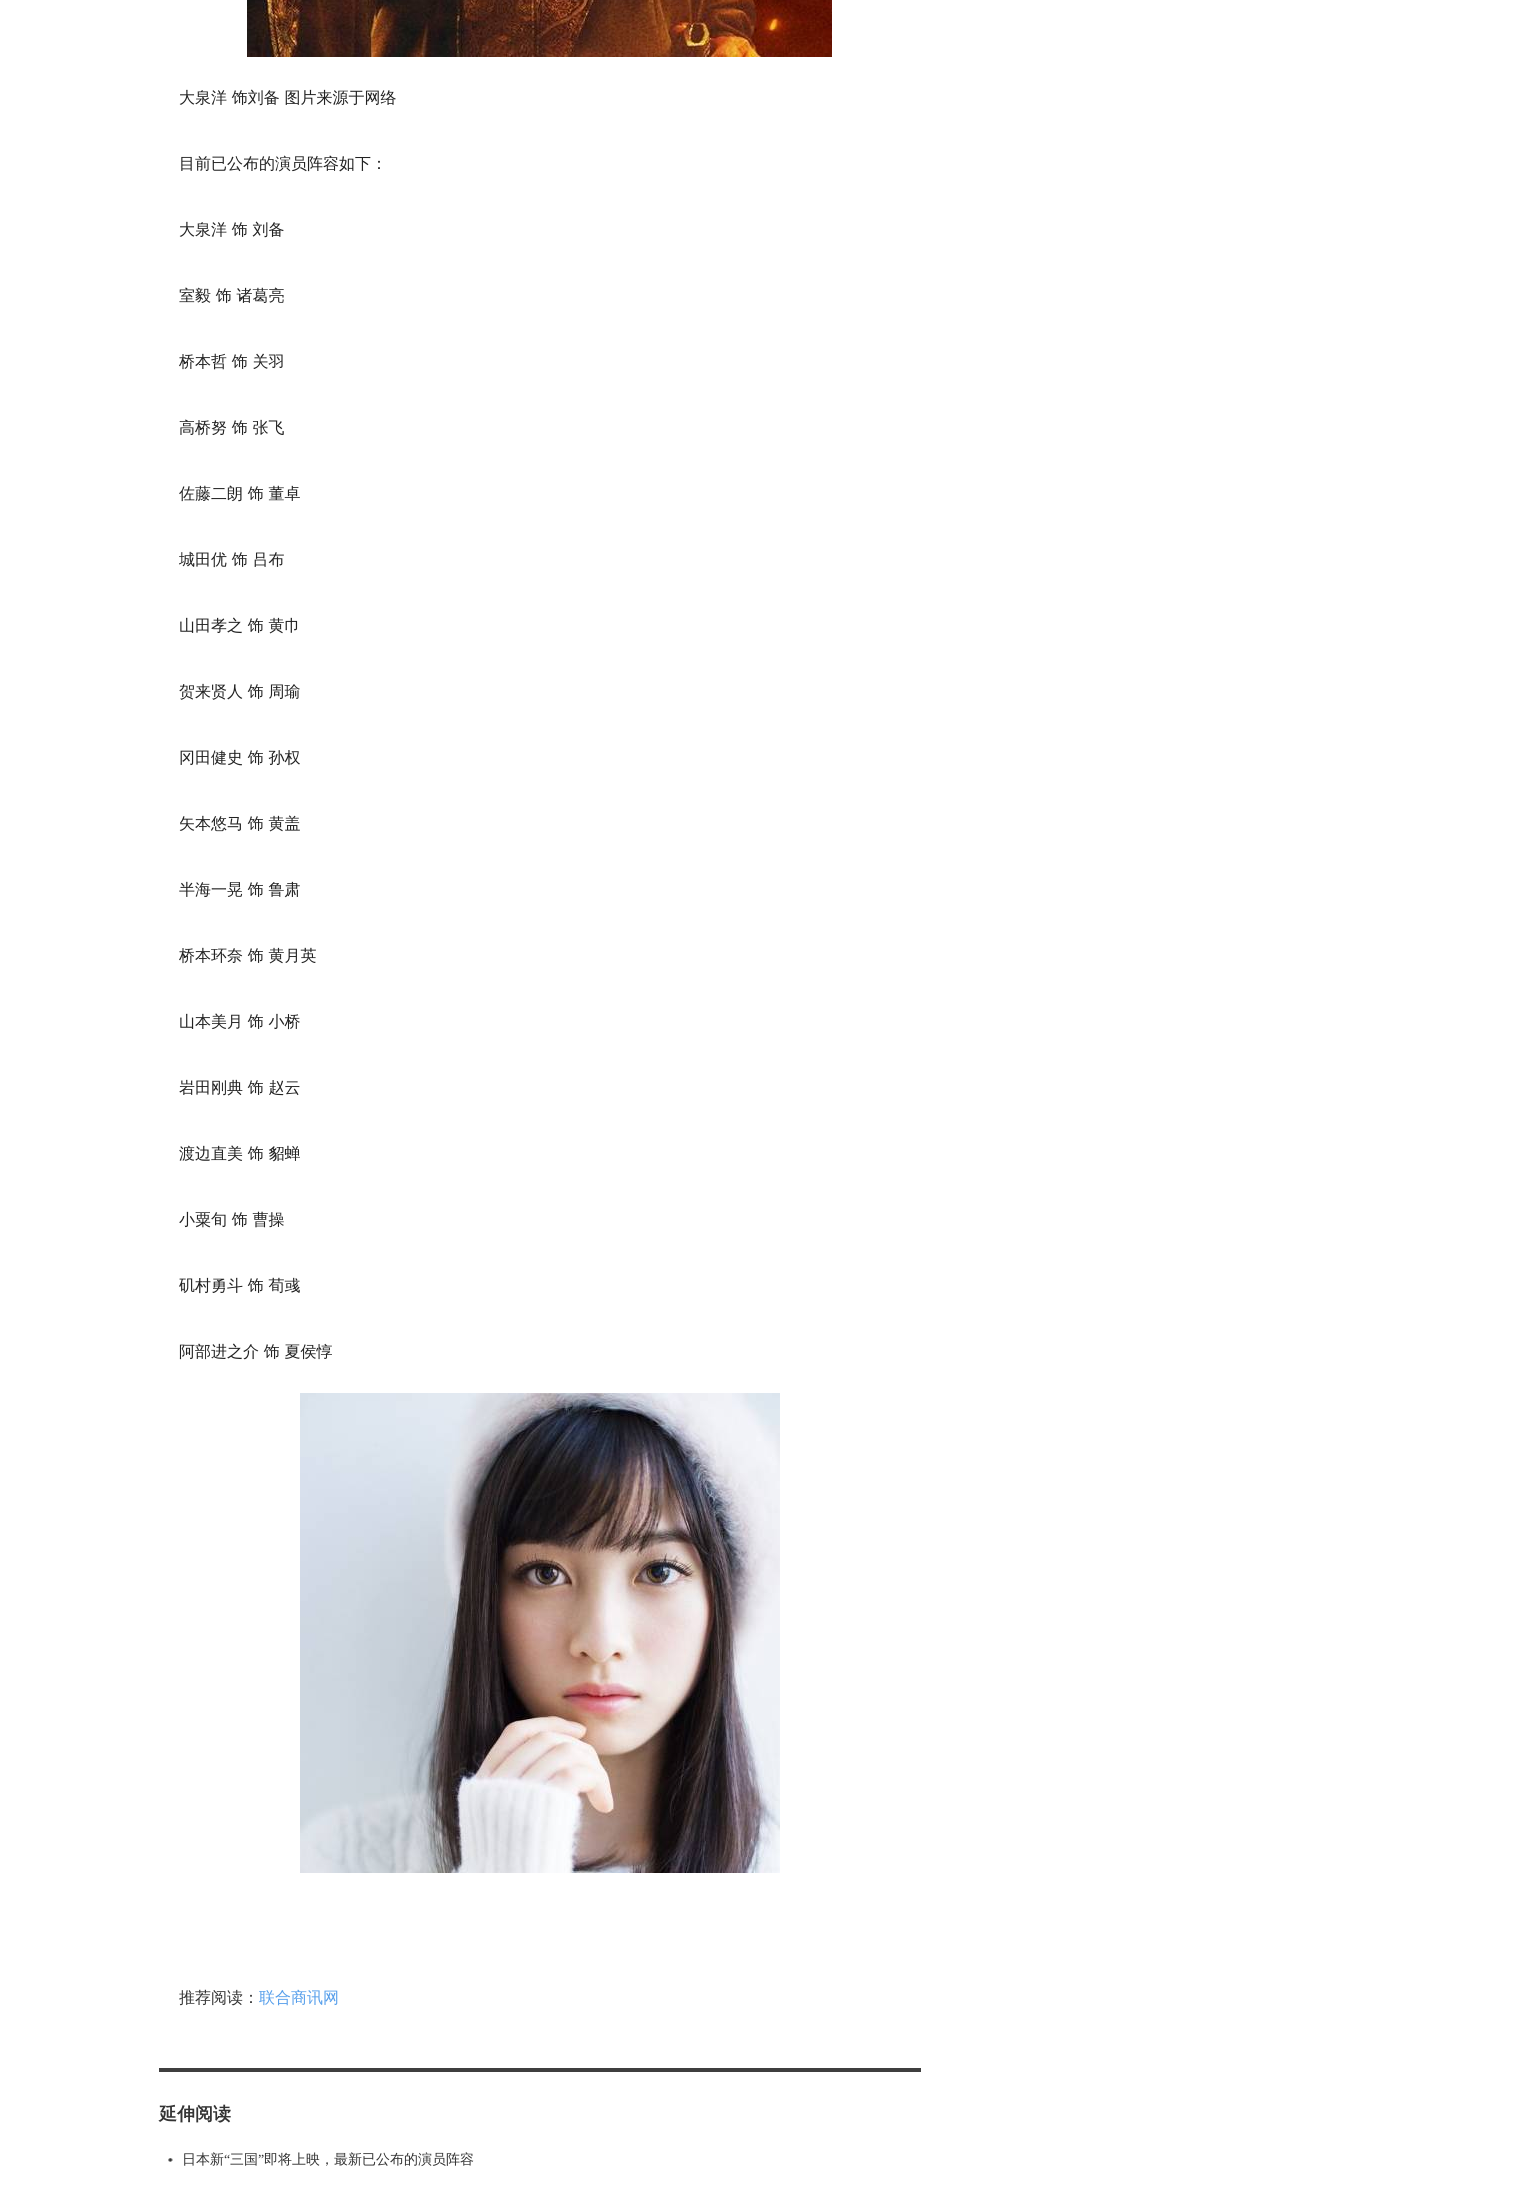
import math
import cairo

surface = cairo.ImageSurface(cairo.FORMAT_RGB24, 1517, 2186)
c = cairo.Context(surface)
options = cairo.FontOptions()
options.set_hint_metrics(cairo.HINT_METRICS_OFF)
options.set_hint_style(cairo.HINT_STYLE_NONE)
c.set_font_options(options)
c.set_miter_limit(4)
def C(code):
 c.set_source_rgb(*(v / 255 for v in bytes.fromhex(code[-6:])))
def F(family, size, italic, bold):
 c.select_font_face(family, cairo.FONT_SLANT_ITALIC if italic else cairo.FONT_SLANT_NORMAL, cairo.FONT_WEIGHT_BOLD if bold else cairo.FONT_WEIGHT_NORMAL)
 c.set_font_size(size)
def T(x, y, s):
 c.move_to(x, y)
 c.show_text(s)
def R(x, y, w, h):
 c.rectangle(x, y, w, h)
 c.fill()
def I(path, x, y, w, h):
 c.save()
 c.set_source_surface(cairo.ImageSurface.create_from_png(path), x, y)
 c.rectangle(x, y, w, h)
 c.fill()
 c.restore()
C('ffffff')
c.paint()
I('1.png',247,0,585,57)
F('WenQuanYi Zen Hei Medium',16,0,0)
C('222222')
T(179,103,'大泉洋 饰刘备 图片来源于网络')
T(179,169,'目前已公布的演员阵容如下：')
T(179,235,'大泉洋 饰 刘备')
T(179,301,'室毅 饰 诸葛亮')
T(179,367,'桥本哲 饰 关羽')
T(179,433,'高桥努 饰 张飞')
T(179,499,'佐藤二朗 饰 董卓')
c.save()
c.rectangle(179,535,722,50)
c.clip()
T(179,565,'城田优 饰 吕布')
c.restore()
T(179,631,'山田孝之 饰 黄巾')
T(179,697,'贺来贤人 饰 周瑜')
T(179,763,'冈田健史 饰 孙权')
T(179,829,'矢本悠马 饰 黄盖')
T(179,895,'半海一晃 饰 鲁肃')
T(179,961,'桥本环奈 饰 黄月英')
T(179,1027,'山本美月 饰 小桥')
T(179,1093,'岩田刚典 饰 赵云')
T(179,1159,'渡边直美 饰 貂蝉')
T(179,1225,'小粟旬 饰 曹操')
T(179,1291,'矶村勇斗 饰 荀彧')
T(179,1357,'阿部进之介 饰 夏侯惇')
I('2.png',300,1393,480,480)
C('333333')
T(179,2003,'推荐阅读：')
C('579feb')
T(259,2003,'联合商讯网')
C('3f3f3f')
R(159,2068,762,4)
F('WenQuanYi Zen Hei',18,0,1)
C('333333')
T(159,2120,'延伸阅读')
I('3.png',168,2158,5,4)
F('WenQuanYi Zen Hei Medium',14,0,0)
T(182,2164,'日本新')
F('Liberation Serif',14,0,0)
T(224,2164,'“')
F('WenQuanYi Zen Hei Medium',14,0,0)
T(230,2164,'三国')
F('Liberation Serif',14,0,0)
T(258,2164,'”')
F('WenQuanYi Zen Hei Medium',14,0,0)
T(264,2164,'即将上映，最新已公布的演员阵容')
surface.write_to_png('o.png')
